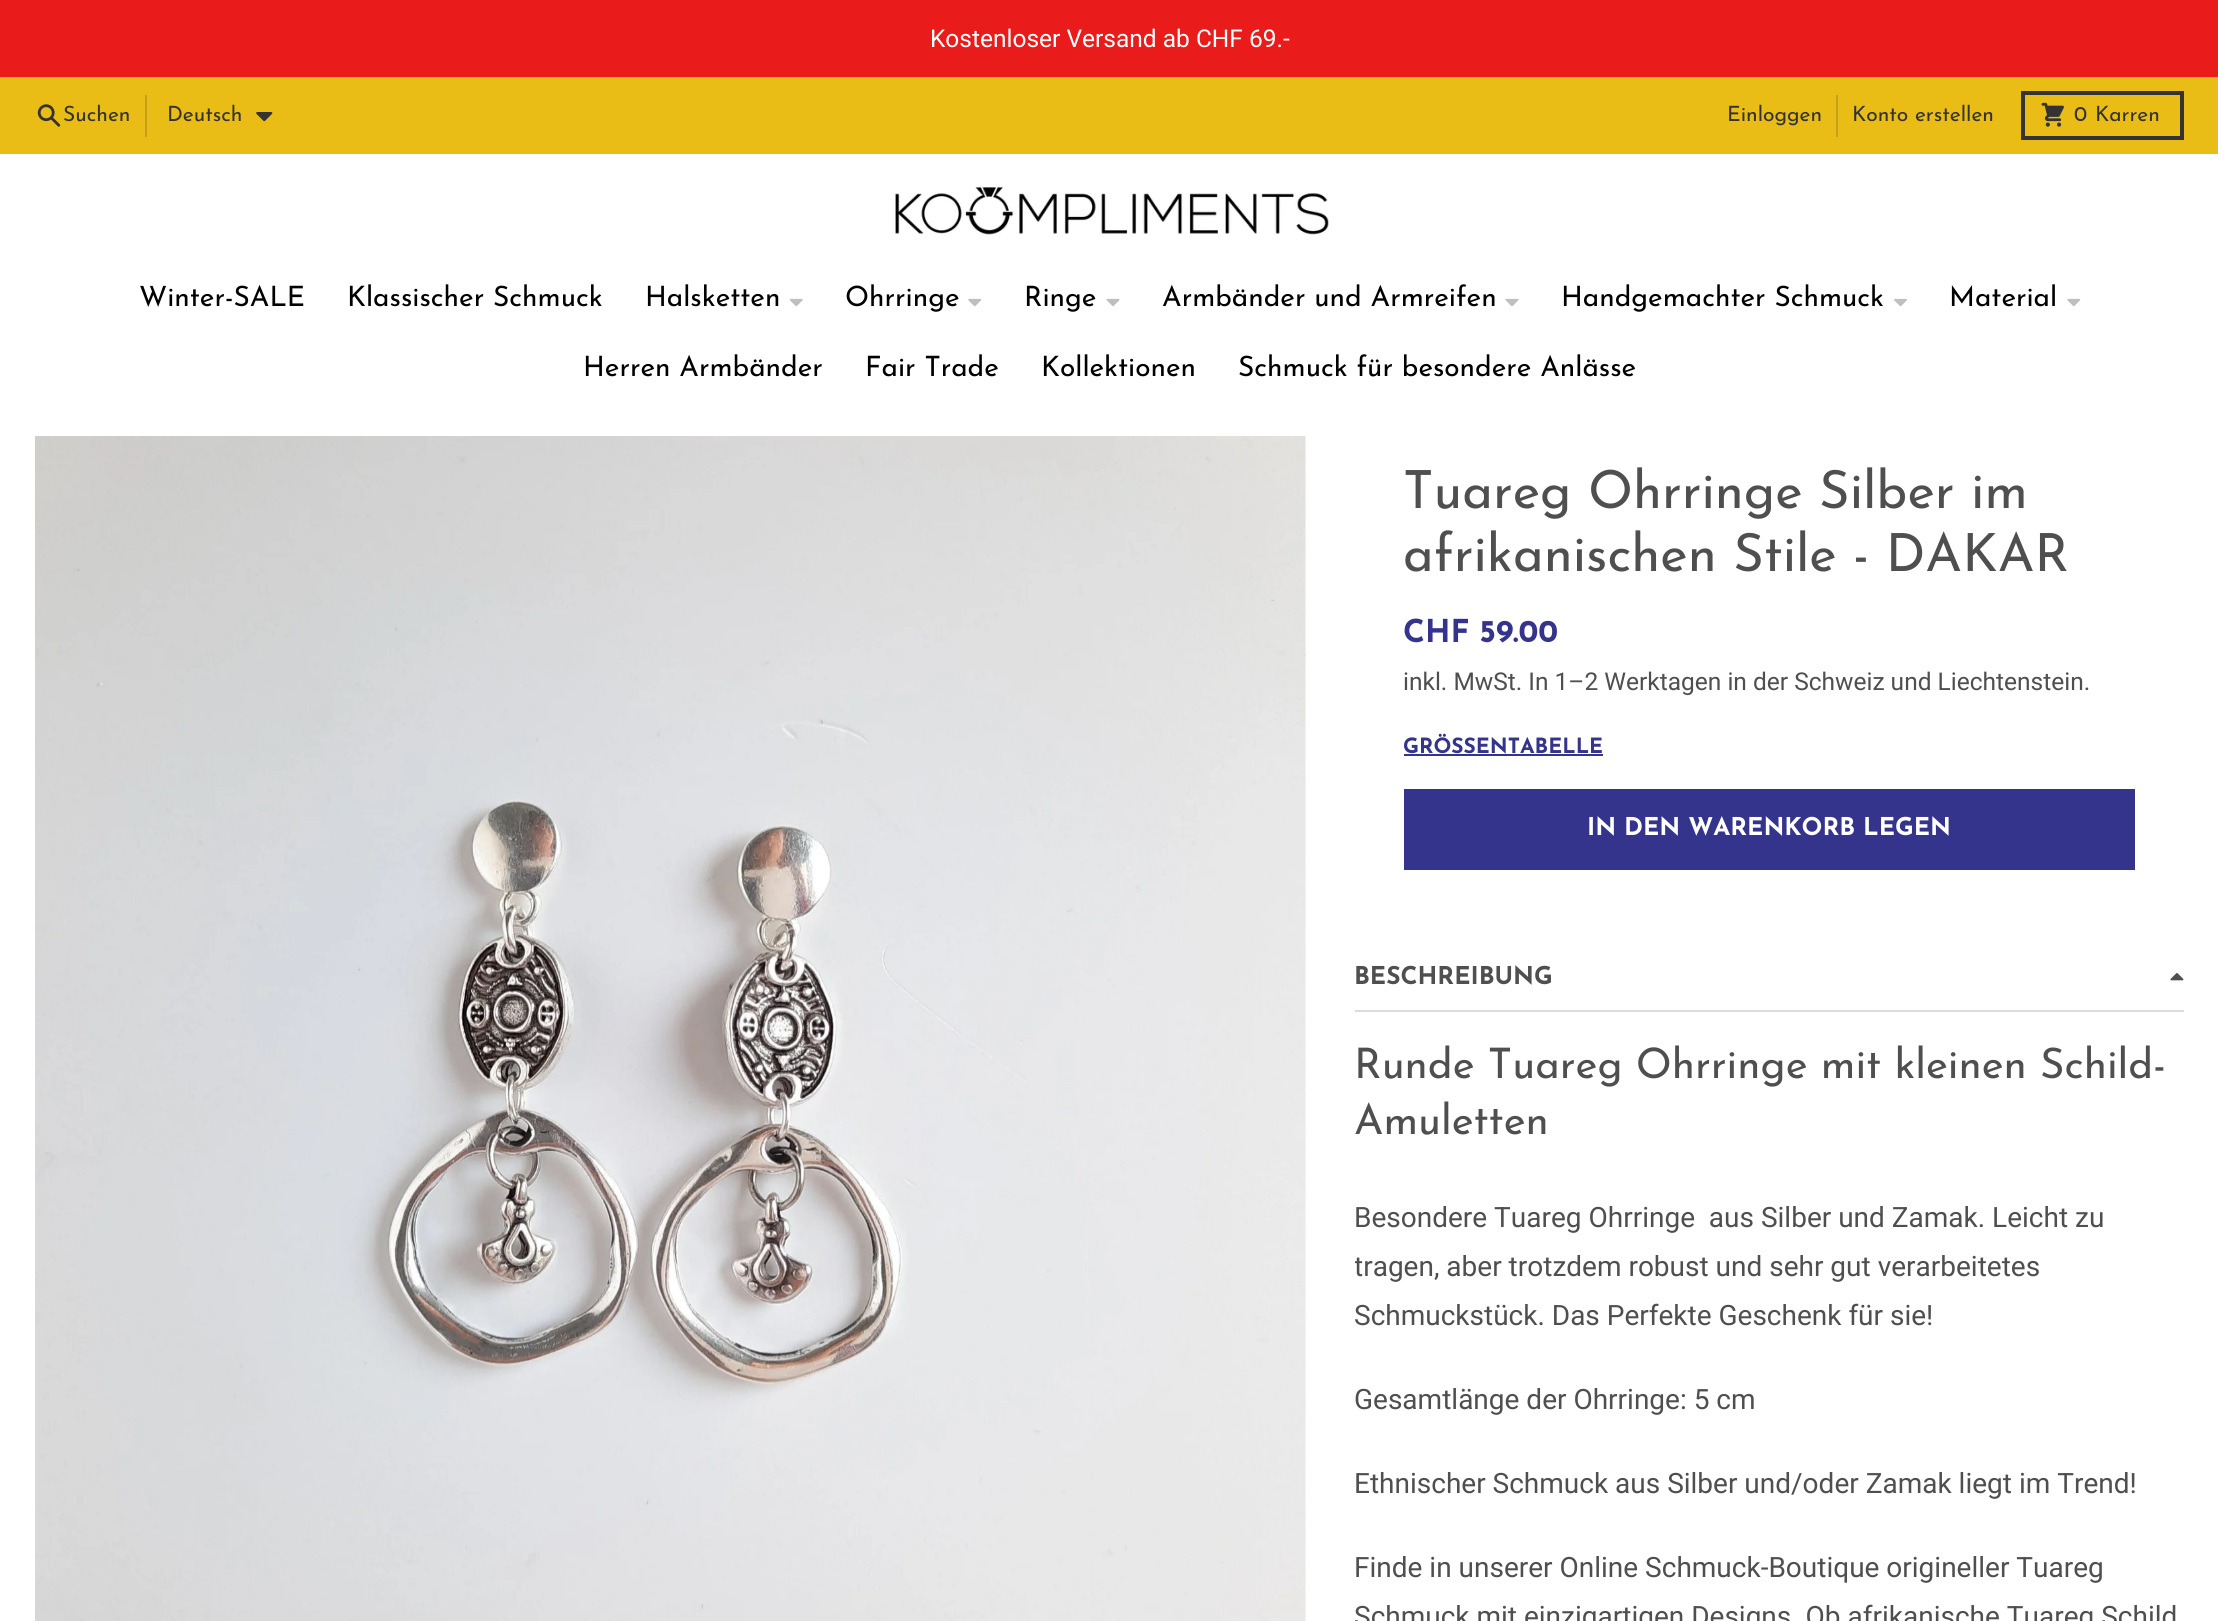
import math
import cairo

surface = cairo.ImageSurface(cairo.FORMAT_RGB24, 2218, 1621)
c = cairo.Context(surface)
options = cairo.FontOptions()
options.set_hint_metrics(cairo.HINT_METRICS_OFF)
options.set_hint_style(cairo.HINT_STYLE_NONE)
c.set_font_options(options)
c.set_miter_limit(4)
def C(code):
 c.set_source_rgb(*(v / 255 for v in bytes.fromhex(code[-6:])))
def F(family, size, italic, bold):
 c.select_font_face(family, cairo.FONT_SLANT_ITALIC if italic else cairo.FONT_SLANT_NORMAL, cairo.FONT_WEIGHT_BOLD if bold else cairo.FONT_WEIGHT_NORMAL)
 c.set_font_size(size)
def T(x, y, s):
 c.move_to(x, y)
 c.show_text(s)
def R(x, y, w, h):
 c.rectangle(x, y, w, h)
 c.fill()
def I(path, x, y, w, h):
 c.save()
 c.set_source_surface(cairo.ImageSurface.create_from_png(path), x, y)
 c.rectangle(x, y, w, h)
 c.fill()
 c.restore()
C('ffffff')
c.paint()
C('ea1b1b')
R(0,0,2218,77)
F('Roboto',24.5,0,0)
C('ffffff')
T(930,47,'Kostenloser Versand ab CHF 69.-')
C('e9bd15')
R(0,77,2218,77)
I('1.png',37,104,24,23)
F('Josefin Sans',21,0,0)
C('333333')
T(63,121,'Suchen')
C('c5a11b')
R(145,95,2,42)
C('333333')
T(167,121,'Deutsch')
I('2.png',256,112,17,10)
T(1727,121,'Einloggen')
C('c5a11b')
R(1836,95,2,42)
C('333333')
T(1852,121,'Konto erstellen')
c.rectangle(2023,93,159,45)
c.set_line_width(4)
c.stroke()
I('3.png',2041,102,23,25)
T(2074,121,'0')
T(2095,121,'Karren')
I('4.png',893,186,436,49)
F('Josefin Sans',28,0,0)
C('000000')
T(139,306,'Winter-SALE')
T(347,306,'Klassischer Schmuck')
T(645,306,'Halsketten')
I('5.png',789,298,14,9)
T(845,306,'Ohrringe')
I('6.png',968,298,14,9)
T(1024,306,'Ringe')
I('7.png',1106,298,14,9)
T(1162,306,'Armbänder und Armreifen')
I('7.png',1505,298,14,9)
T(1561,306,'Handgemachter Schmuck')
I('8.png',1894,298,13,9)
T(1949,306,'Material')
I('6.png',2067,298,14,9)
T(583,376,'Herren Armbänder')
T(865,376,'Fair Trade')
T(1041,376,'Kollektionen')
T(1238,376,'Schmuck für besondere Anlässe')
I('9.png',35,436,1271,1185)
F('Josefin Sans',52.5,0,0)
C('4f4f4f')
T(1403,508,'Tuareg Ohrringe Silber im')
T(1403,571,'afrikanischen Stile - DAKAR')
F('Josefin Sans',31.5,0,1)
C('34348c')
T(1403,642,'CHF 59.00')
F('Roboto',24.5,0,0)
C('4f4f4f')
T(1403,690,'inkl. MwSt. In 1–2 Werktagen in der Schweiz und Liechtenstein.')
F('Josefin Sans',21,0,1)
C('34348c')
T(1403,753,'GRÖSSENTABELLE')
R(1404,754,199,2)
R(1404,789,731,81)
F('Josefin Sans',24.5,0,1)
C('ffffff')
T(1587,835,'IN DEN WARENKORB LEGEN')
C('dcdcdc')
R(1355,1010,829,2)
C('4f4f4f')
T(1354,984,'BESCHREIBUNG')
I('10.png',2170,973,14,8)
F('Josefin Sans',42,0,0)
T(1354,1078,'Runde Tuareg Ohrringe mit kleinen Schild-')
T(1354,1134,'Amuletten')
F('Roboto',28,0,0)
T(1354,1227,'Besondere Tuareg Ohrringe  aus Silber und Zamak. Leicht zu')
c.save()
c.rectangle(1355,1040,829,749)
c.clip()
T(1354,1276,'tragen, aber trotzdem robust und sehr gut verarbeitetes')
c.restore()
T(1354,1325,'Schmuckstück. Das Perfekte Geschenk für sie!')
T(1354,1409,'Gesamtlänge der Ohrringe: 5 cm')
T(1354,1493,'Ethnischer Schmuck aus Silber und/oder Zamak liegt im Trend!')
T(1354,1577,'Finde in unserer Online Schmuck-Boutique origineller Tuareg')
T(1354,1626,'Schmuck mit einzigartigen Designs. Ob afrikanische Tuareg Schild')
surface.write_to_png('o.png')
